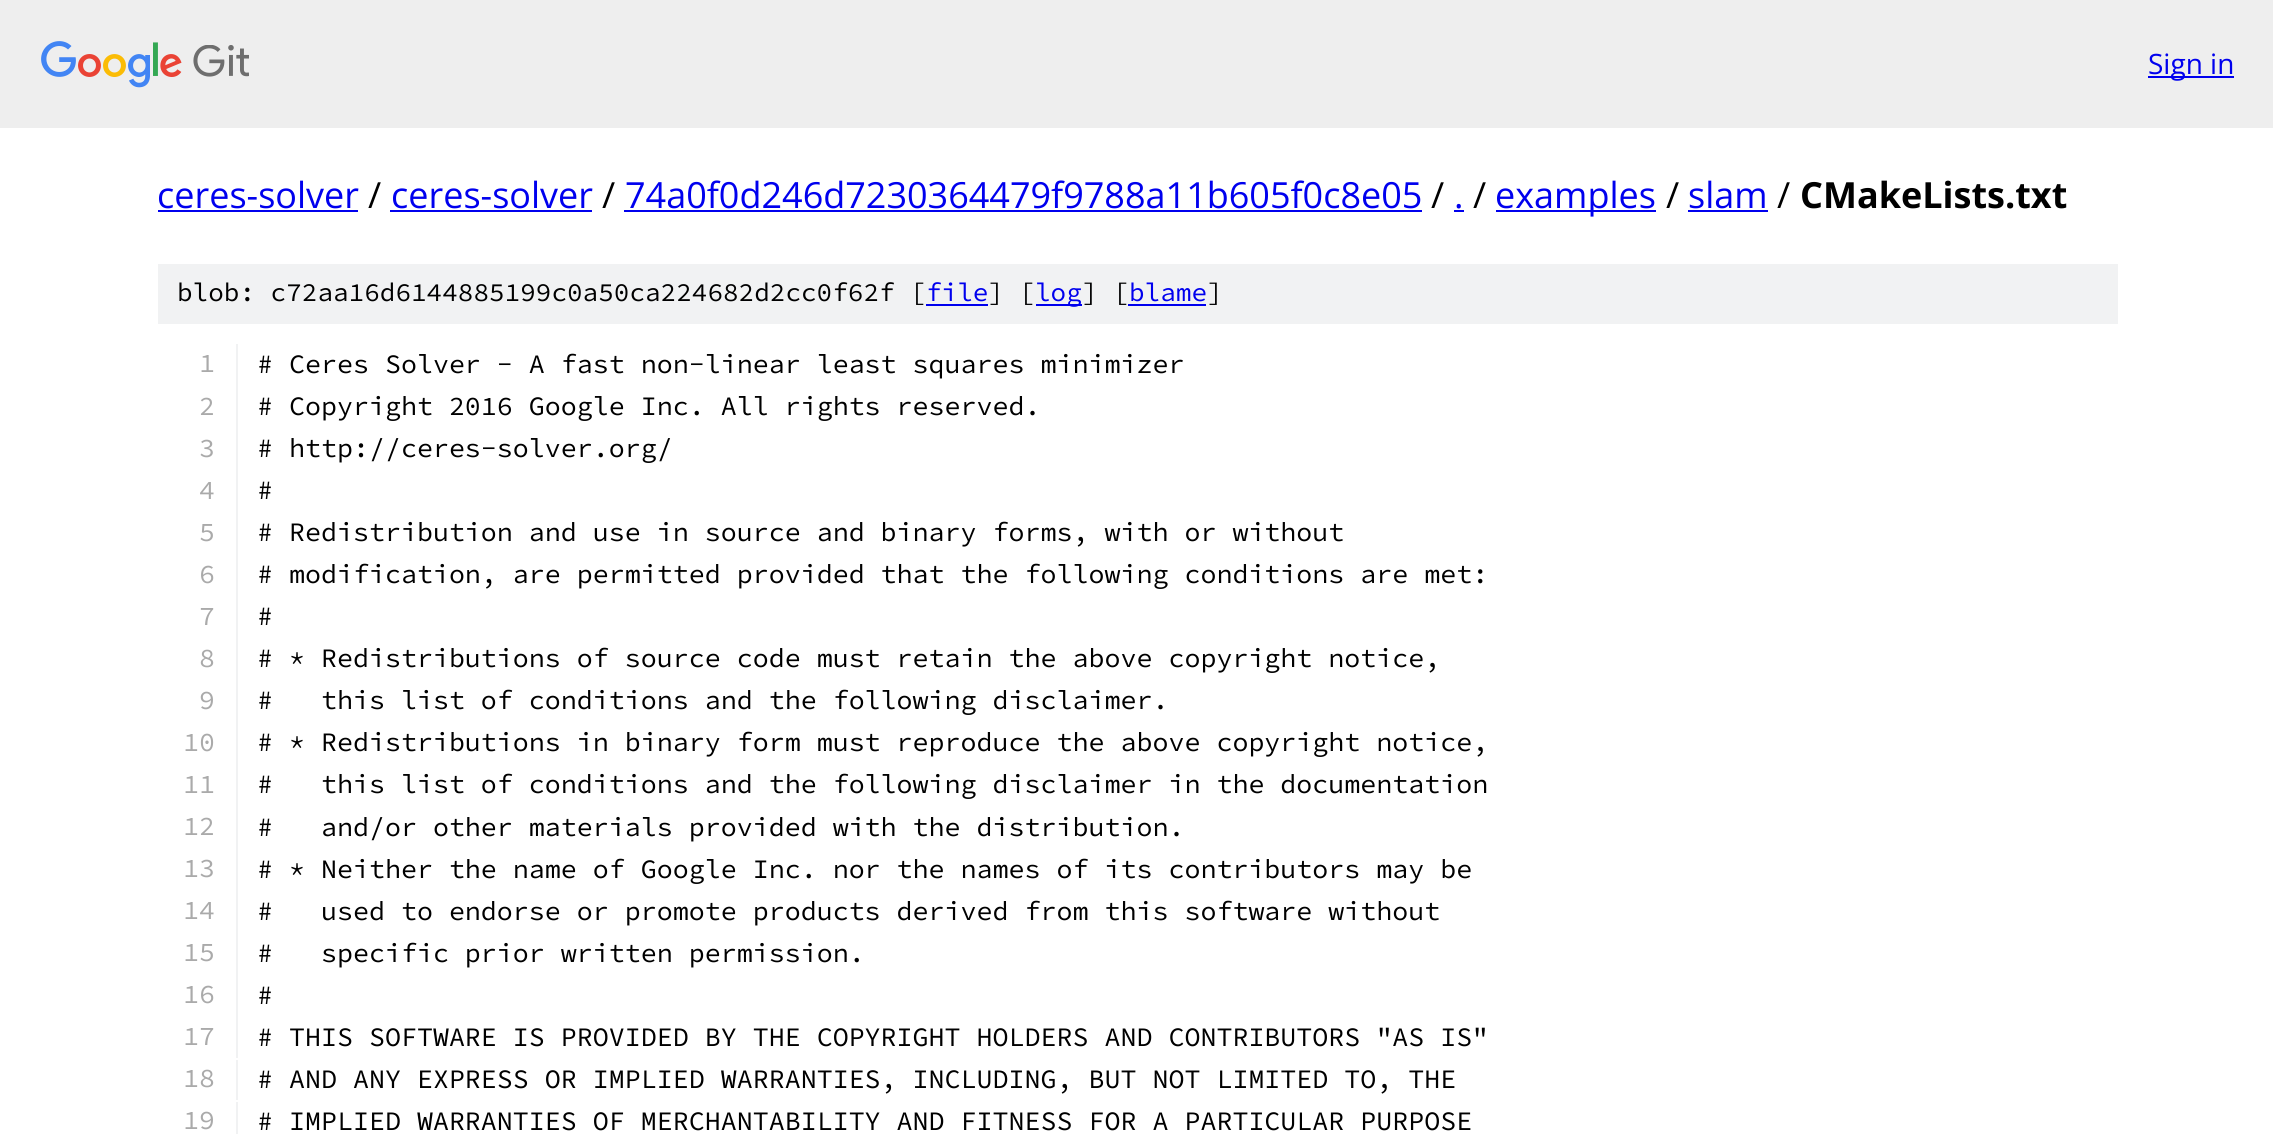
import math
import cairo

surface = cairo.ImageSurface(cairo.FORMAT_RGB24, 2273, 1134)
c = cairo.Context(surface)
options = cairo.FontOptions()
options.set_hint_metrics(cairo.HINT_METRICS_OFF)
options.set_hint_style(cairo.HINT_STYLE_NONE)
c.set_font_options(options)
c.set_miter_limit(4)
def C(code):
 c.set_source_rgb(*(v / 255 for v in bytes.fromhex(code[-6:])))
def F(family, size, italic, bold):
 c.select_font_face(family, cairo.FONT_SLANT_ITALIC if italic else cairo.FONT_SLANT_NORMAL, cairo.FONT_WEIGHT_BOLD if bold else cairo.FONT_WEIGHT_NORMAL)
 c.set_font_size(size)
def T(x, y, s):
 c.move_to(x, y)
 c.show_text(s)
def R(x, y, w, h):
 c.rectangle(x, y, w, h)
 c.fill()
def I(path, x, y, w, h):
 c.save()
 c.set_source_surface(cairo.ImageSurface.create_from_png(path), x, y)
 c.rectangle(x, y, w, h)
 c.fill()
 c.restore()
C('ffffff')
c.paint()
C('eeeeee')
R(0,0,2273,128)
I('1.png',41,41,208,47)
C('0000ee')
R(2148,76,86,2)
F('Open Sans',28,0,0)
T(2148,74,'Sign in')
F('Open Sans',36,0,0)
T(157,208,'ceres-solver')
R(158,210,200,2)
C('000000')
T(368,208,'/')
C('0000ee')
T(391,208,'ceres-solver')
R(390,210,202,2)
C('000000')
T(602,208,'/')
C('0000ee')
T(625,208,'74a0f0d246d7230364479f9788a11b605f0c8e05')
R(624,210,798,2)
C('000000')
T(1431,208,'/')
C('0000ee')
T(1454,208,'.')
R(1454,210,10,2)
C('000000')
T(1473,208,'/')
C('0000ee')
R(1496,210,160,2)
T(1495,208,'examples')
C('000000')
T(1666,208,'/')
C('0000ee')
T(1688,208,'slam')
R(1688,210,80,2)
C('000000')
T(1777,208,'/')
F('Open Sans',36,0,1)
T(1800,208,'CMakeLists.txt')
C('f1f2f3')
R(158,264,1960,60)
F('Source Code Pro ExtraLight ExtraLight',26,0,0)
C('000000')
T(177,301,'blob: c72aa16d6144885199c0a50ca224682d2cc0f62f [')
C('0000ee')
T(926,301,'file')
R(926,304,62,2)
C('000000')
T(988,301,'] [')
C('0000ee')
R(1036,304,46,2)
T(1035,301,'log')
C('000000')
T(1082,301,'] [')
C('0000ee')
T(1129,301,'blame')
R(1128,304,78,2)
C('000000')
T(1207,301,']')
C('f1f2f3')
R(236,344,2,714)
F('Source Code Pro ExtraLight ExtraLight',26.65,0,0)
C('aaaaaa')
T(199,372,'1')
C('000000')
T(257,373,'# Ceres Solver - A fast non-linear least squares minimizer')
C('aaaaaa')
T(199,415,'2')
C('000000')
T(257,415,'# Copyright 2016 Google Inc. All rights reserved.')
C('aaaaaa')
T(199,457,'3')
C('000000')
T(257,457,'# http://ceres-solver.org/')
C('aaaaaa')
T(199,499,'4')
C('000000')
T(257,499,'#')
C('aaaaaa')
T(199,541,'5')
C('000000')
T(257,541,'# Redistribution and use in source and binary forms, with or without')
C('aaaaaa')
T(199,583,'6')
C('000000')
T(257,583,'# modification, are permitted provided that the following conditions are met:')
C('aaaaaa')
T(199,625,'7')
C('000000')
T(257,625,'#')
C('aaaaaa')
T(199,667,'8')
C('000000')
T(257,667,'# * Redistributions of source code must retain the above copyright notice,')
C('aaaaaa')
T(199,709,'9')
C('000000')
T(257,709,'#   this list of conditions and the following disclaimer.')
C('aaaaaa')
T(183,751,'10')
C('000000')
T(257,751,'# * Redistributions in binary form must reproduce the above copyright notice,')
C('aaaaaa')
T(183,793,'11')
C('000000')
T(257,793,'#   this list of conditions and the following disclaimer in the documentation')
C('aaaaaa')
T(183,835,'12')
C('000000')
T(257,836,'#   and/or other materials provided with the distribution.')
C('aaaaaa')
T(183,877,'13')
C('000000')
T(257,878,'# * Neither the name of Google Inc. nor the names of its contributors may be')
C('aaaaaa')
T(183,919,'14')
C('000000')
T(257,920,'#   used to endorse or promote products derived from this software without')
C('aaaaaa')
T(183,961,'15')
C('000000')
T(257,962,'#   specific prior written permission.')
C('aaaaaa')
T(183,1003,'16')
C('000000')
T(257,1004,'#')
C('aaaaaa')
T(183,1045,'17')
C('000000')
T(257,1046,'# THIS SOFTWARE IS PROVIDED BY THE COPYRIGHT HOLDERS AND CONTRIBUTORS "AS IS"')
C('f1f2f3')
R(236,1060,2,40)
C('aaaaaa')
T(183,1087,'18')
C('000000')
T(257,1088,'# AND ANY EXPRESS OR IMPLIED WARRANTIES, INCLUDING, BUT NOT LIMITED TO, THE')
C('f1f2f3')
R(236,1102,2,32)
C('aaaaaa')
T(183,1129,'19')
C('000000')
T(257,1130,'# IMPLIED WARRANTIES OF MERCHANTABILITY AND FITNESS FOR A PARTICULAR PURPOSE')
surface.write_to_png('o.png')
